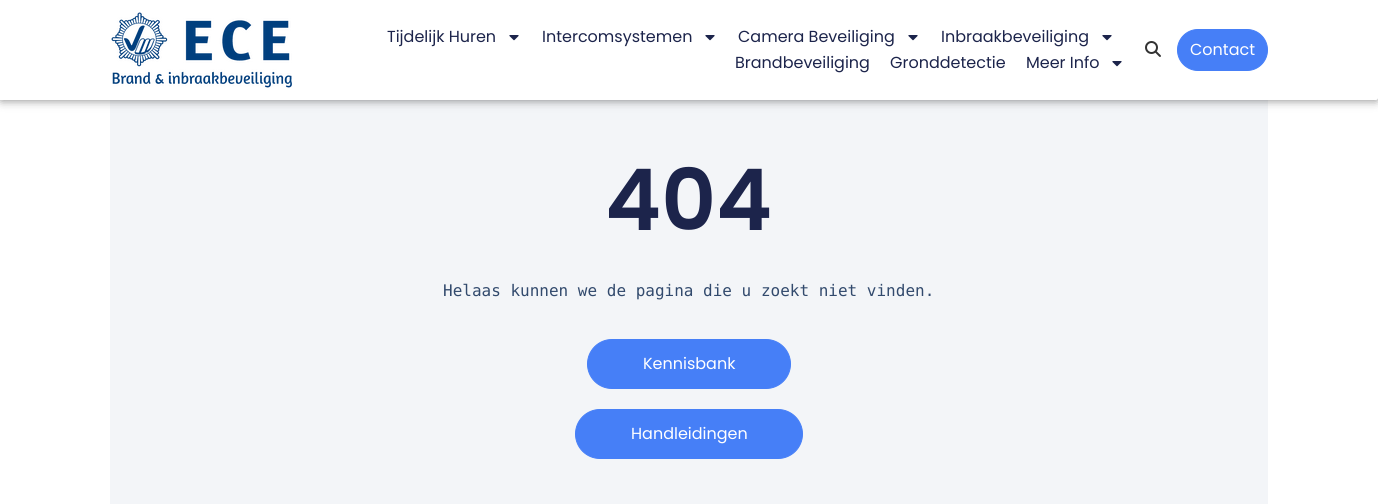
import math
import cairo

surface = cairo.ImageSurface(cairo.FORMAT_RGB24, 1378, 504)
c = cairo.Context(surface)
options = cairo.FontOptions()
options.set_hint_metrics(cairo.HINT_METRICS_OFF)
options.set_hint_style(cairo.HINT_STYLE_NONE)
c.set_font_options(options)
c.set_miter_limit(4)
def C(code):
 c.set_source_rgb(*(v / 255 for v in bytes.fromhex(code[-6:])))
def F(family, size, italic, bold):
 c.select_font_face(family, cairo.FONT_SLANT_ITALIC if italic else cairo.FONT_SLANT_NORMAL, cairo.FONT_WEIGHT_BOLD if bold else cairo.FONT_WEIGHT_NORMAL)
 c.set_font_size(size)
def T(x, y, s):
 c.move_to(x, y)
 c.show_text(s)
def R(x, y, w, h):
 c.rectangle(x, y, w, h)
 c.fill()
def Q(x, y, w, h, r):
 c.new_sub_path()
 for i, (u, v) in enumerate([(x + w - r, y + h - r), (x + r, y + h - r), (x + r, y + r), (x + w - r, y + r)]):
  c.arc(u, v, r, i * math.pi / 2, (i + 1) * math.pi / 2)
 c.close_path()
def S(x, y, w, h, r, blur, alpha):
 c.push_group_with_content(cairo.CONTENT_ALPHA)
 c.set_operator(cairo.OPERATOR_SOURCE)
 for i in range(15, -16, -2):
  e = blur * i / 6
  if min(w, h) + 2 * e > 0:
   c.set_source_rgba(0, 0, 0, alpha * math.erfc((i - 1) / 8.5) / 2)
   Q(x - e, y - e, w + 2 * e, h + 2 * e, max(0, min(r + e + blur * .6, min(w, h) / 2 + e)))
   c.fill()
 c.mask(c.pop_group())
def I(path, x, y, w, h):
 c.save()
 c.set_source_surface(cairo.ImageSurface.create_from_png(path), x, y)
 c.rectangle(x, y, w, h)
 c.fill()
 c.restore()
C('ffffff')
c.paint()
C('f3f5f8')
R(110,100,1158,404)
C('000000')
S(0,0,1378,100,2,5,.5)
C('ffffff')
c.new_path()
c.move_to(0,0)
c.line_to(1378,0)
c.line_to(1378,98)
c.curve_to(1378,99,1377,100,1376,100)
c.line_to(0,100)
c.close_path()
c.fill()
I('1.png',111,12,181,76)
F('Poppins',16,0,0)
C('1c244b')
T(387,42,'Tijdelijk Huren')
I('2.png',509,35,10,6)
T(542,42,'Intercomsystemen')
I('2.png',705,35,10,6)
T(738,42,'Camera Beveiliging')
I('2.png',908,35,10,6)
T(941,42,'Inbraakbeveiliging')
I('2.png',1102,35,10,6)
T(735,68,'Brandbeveiliging')
T(890,68,'Gronddetectie')
T(1026,68,'Meer Info')
I('2.png',1112,61,10,6)
I('3.png',1145,41,16,16)
C('467ff7')
Q(1177.5,29.5,90,41,20.5)
c.fill_preserve()
c.set_line_width(1)
c.stroke()
C('ffffff')
T(1190,55,'Contact')
F('Poppins SemiBold',85,0,0)
C('1c244b')
T(605,230,'404')
F('DejaVu Sans Mono',16,0,0)
C('324a6d')
T(443,296,'Helaas kunnen we de pagina die u zoekt niet vinden.')
C('467ff7')
Q(587.5,339.5,203,49,24.5)
c.fill_preserve()
c.stroke()
F('Poppins',16,0,0)
C('ffffff')
T(643,369,'Kennisbank')
C('467ff7')
Q(575.5,409.5,227,49,24.5)
c.fill_preserve()
c.stroke()
C('ffffff')
T(631,439,'Handleidingen')
surface.write_to_png('o.png')
